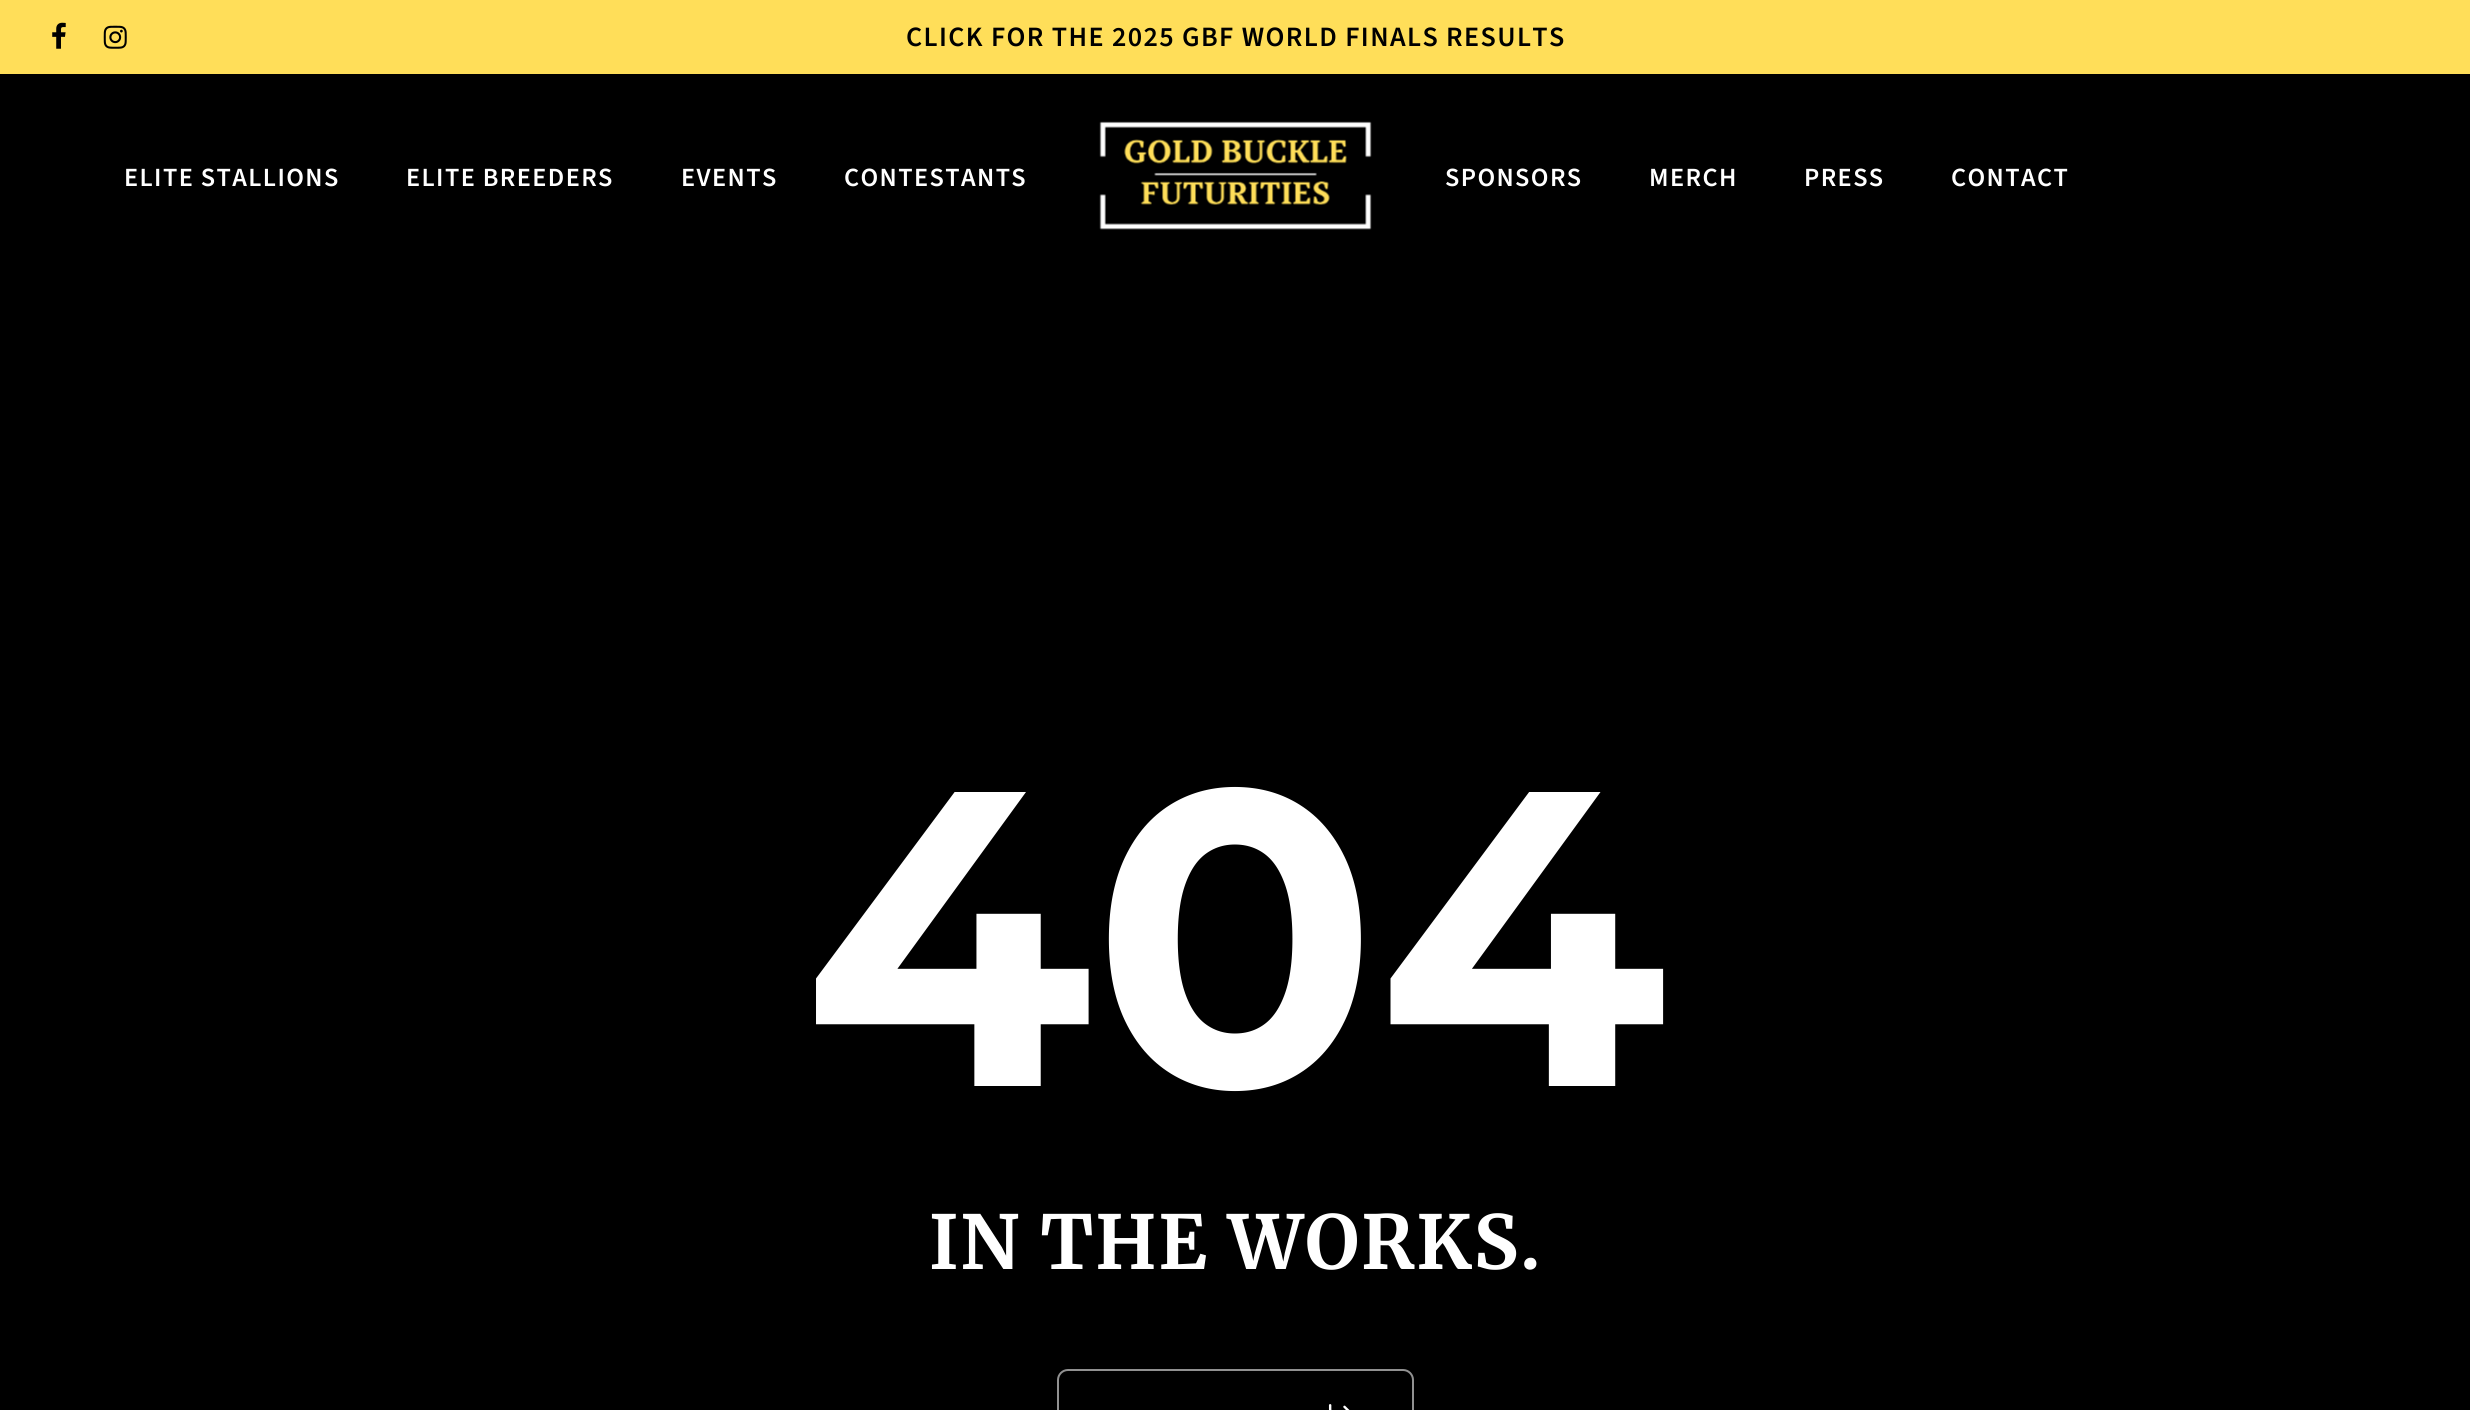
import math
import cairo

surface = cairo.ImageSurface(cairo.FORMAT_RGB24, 2470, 1410)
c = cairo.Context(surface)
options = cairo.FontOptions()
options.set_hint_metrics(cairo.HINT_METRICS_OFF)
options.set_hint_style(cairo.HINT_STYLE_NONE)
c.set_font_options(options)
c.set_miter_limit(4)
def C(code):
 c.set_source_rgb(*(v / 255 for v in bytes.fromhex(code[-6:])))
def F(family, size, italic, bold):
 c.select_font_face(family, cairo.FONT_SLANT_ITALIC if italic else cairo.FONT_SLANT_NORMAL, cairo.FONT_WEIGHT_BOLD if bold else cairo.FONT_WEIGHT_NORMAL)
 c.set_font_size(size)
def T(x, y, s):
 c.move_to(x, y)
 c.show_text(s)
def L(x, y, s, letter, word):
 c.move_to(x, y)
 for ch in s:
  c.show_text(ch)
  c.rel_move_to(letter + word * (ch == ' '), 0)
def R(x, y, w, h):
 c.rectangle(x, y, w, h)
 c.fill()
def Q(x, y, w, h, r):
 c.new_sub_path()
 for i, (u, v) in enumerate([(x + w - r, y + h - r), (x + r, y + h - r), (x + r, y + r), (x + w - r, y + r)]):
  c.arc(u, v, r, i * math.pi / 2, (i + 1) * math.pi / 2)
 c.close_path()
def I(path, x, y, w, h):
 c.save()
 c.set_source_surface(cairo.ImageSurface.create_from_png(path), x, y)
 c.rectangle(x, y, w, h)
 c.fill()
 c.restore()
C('000000')
c.paint()
C('ffde59')
R(0,0,2470,74)
I('1.png',52,22,14,27)
I('2.png',103,25,24,24)
F('Source Sans 3 SemiBold',28,0,0)
C('000000')
L(906,46,'CLICK FOR THE 2025 GBF WORLD FINALS RESULTS',1.4,0)
I('3.png',1099,121,273,109)
F('Source Sans 3 SemiBold',26.25,0,0)
C('ffffff')
L(124,186,'ELITE STALLIONS',1.4,0)
L(406,186,'ELITE BREEDERS',1.4,0)
L(681,186,'EVENTS',1.4,0)
L(844,186,'CONTESTANTS',1.4,0)
L(1445,186,'SPONSORS',1.4,0)
L(1649,186,'MERCH',1.4,0)
L(1804,186,'PRESS',1.4,0)
L(1951,186,'CONTACT',1.4,0)
F('Montserrat',420,0,1)
T(803,1086,'404')
F('Merriweather',74.25,0,1)
L(929,1269,'IN THE WORKS.',1.75,0)
Q(1058,1370,355,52,10)
C('919191')
c.stroke()
I('4.png',1328,1404,22,6)
surface.write_to_png('o.png')
